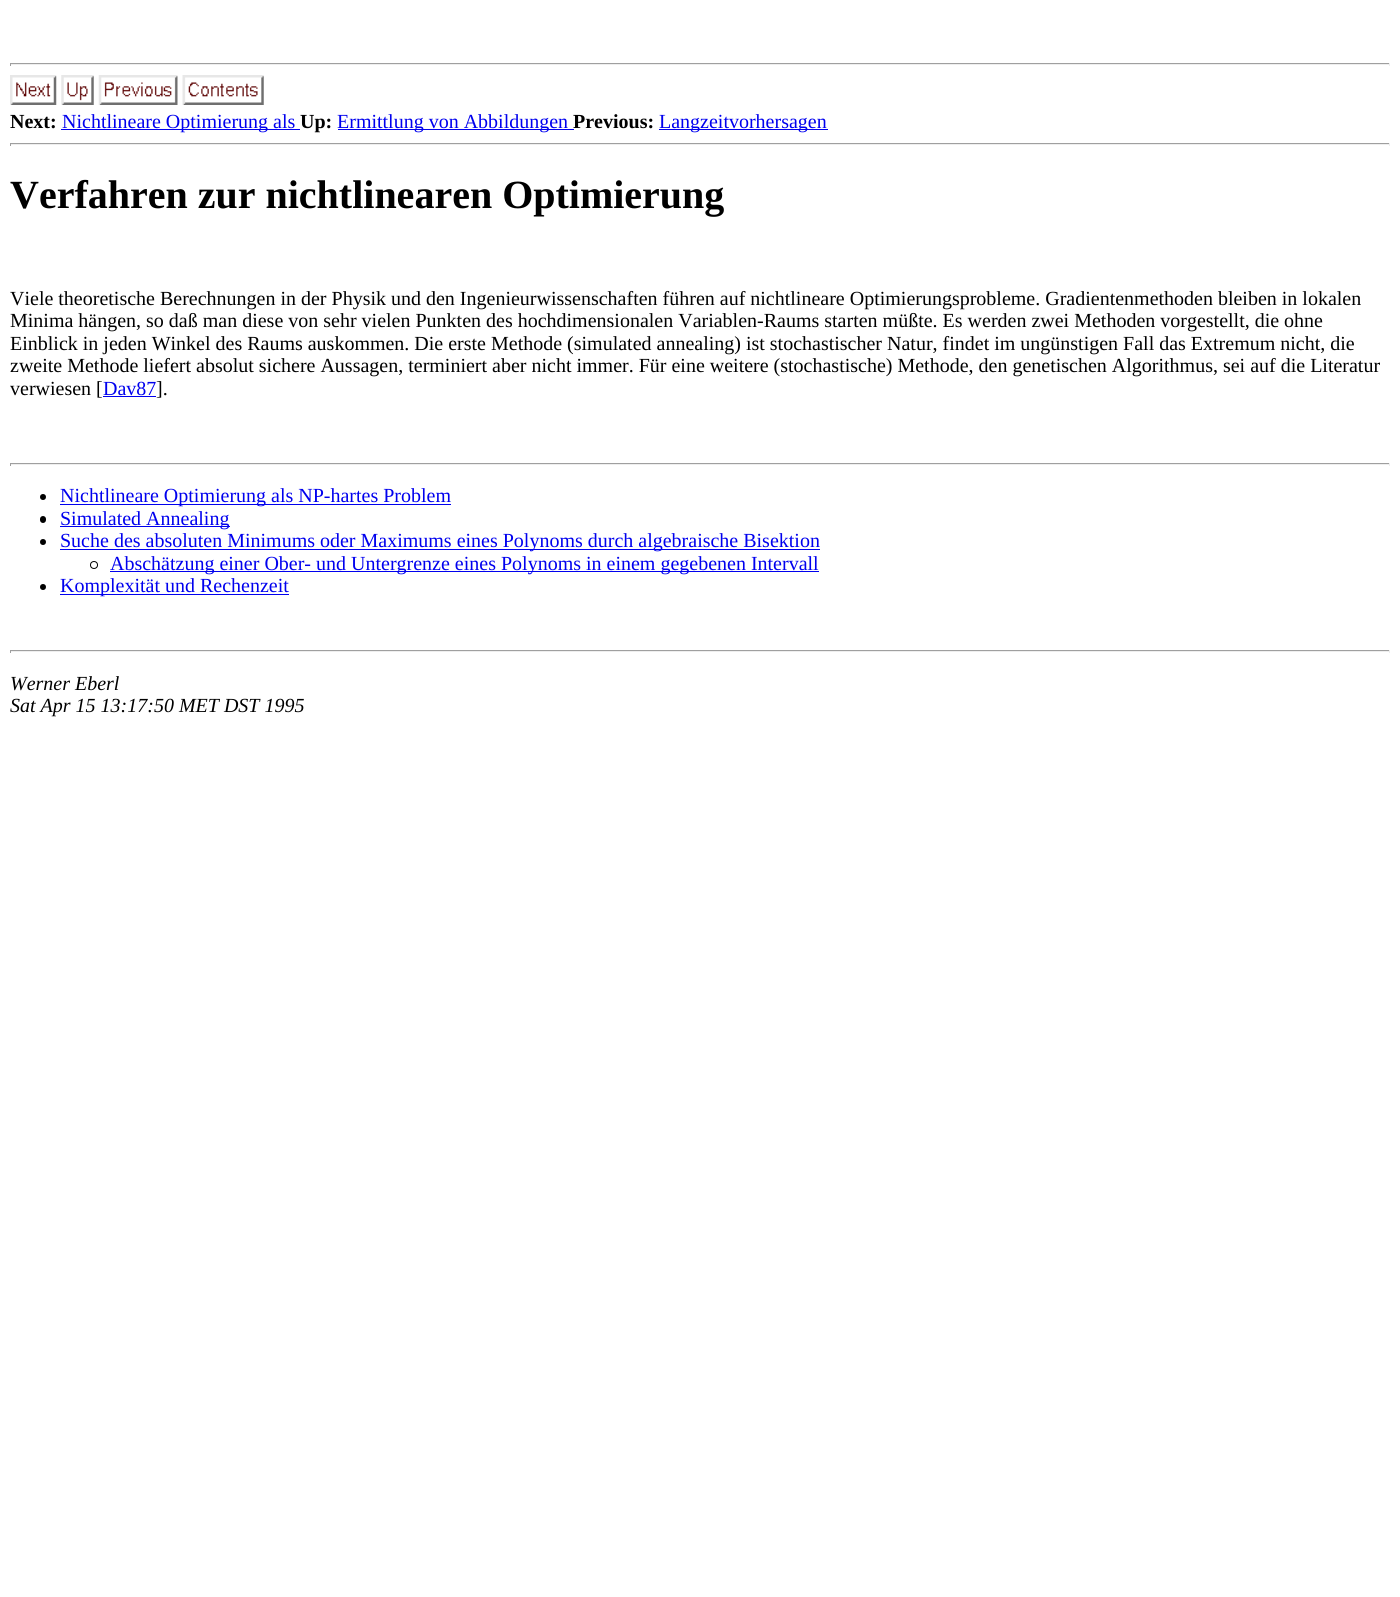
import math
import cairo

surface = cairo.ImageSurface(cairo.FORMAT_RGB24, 1400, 1597)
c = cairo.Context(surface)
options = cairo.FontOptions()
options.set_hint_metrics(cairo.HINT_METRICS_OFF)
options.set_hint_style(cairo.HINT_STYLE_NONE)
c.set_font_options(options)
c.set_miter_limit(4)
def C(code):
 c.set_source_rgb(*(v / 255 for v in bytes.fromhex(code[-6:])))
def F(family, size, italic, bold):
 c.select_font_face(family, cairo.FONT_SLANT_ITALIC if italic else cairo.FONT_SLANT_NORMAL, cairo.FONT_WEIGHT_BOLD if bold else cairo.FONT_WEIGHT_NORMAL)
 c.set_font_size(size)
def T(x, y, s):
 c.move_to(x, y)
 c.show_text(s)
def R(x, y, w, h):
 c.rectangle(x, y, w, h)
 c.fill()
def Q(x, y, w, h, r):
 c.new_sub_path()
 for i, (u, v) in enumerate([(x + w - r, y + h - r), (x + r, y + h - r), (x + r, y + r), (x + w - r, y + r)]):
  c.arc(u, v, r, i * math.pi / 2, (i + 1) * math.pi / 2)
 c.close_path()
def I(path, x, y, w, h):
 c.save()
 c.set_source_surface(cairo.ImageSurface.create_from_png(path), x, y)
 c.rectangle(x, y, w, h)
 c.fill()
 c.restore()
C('ffffff')
c.paint()
C('9f9f9f')
R(10,63,1380,1)
C('eeeeee')
R(1389,63,1,3)
R(10,64,1380,1)
C('9f9f9f')
R(10,63,1,3)
I('1.png',10,75,47,30)
I('2.png',61,75,33,30)
I('3.png',98,75,80,30)
I('4.png',182,75,82,30)
F('Liberation Serif',20,0,1)
C('000000')
T(10,128,'Next:')
C('0000ee')
R(61,129,239,1)
F('Liberation Serif',20,0,0)
T(62,128,'Nichtlineare Optimierung als')
F('Liberation Serif',20,0,1)
C('000000')
T(300,128,'Up:')
C('0000ee')
R(338,129,236,1)
F('Liberation Serif',20,0,0)
T(337,128,'Ermittlung von Abbildungen')
F('Liberation Serif',20,0,1)
C('000000')
T(573,128,'Previous:')
C('0000ee')
R(659,129,169,1)
F('Liberation Serif',20,0,0)
T(659,128,'Langzeitvorhersagen')
C('9f9f9f')
R(10,143,1380,1)
C('eeeeee')
R(1389,143,1,3)
R(10,144,1380,1)
C('9f9f9f')
R(10,143,1,3)
F('Liberation Serif',40,0,1)
C('000000')
T(10,208,'Verfahren zur nichtlinearen Optimierung')
F('Liberation Serif',20,0,0)
T(10,305,'Viele theoretische Berechnungen in der Physik und den Ingenieurwissenschaften führen auf nichtlineare Optimierungsprobleme. Gradientenmethoden bleiben in lokalen')
T(10,327,'Minima hängen, so daß man diese von sehr vielen Punkten des hochdimensionalen Variablen-Raums starten müßte. Es werden zwei Methoden vorgestellt, die ohne')
T(10,350,'Einblick in jeden Winkel des Raums auskommen. Die erste Methode (simulated annealing) ist stochastischer Natur, findet im ungünstigen Fall das Extremum nicht, die')
T(10,372,'zweite Methode liefert absolut sichere Aussagen, terminiert aber nicht immer. Für eine weitere (stochastische) Methode, den genetischen Algorithmus, sei auf die Literatur')
T(10,395,'verwiesen [')
C('0000ee')
T(103,395,'Dav87')
R(103,396,53,1)
C('000000')
T(156,395,'].')
C('9f9f9f')
R(10,463,1380,1)
C('eeeeee')
R(1389,463,1,3)
R(10,464,1380,1)
C('9f9f9f')
R(10,463,1,3)
C('000000')
c.new_path()
c.arc(43,497,3,0,2 * math.pi)
c.fill()
C('0000ee')
R(60,504,391,1)
T(60,502,'Nichtlineare Optimierung als NP-hartes Problem')
C('000000')
Q(40,516,6,7,3)
c.fill()
C('0000ee')
R(60,526,170,1)
T(60,525,'Simulated Annealing')
C('000000')
c.new_path()
c.arc(43,542,3,0,2 * math.pi)
c.fill()
C('0000ee')
R(60,549,760,1)
T(60,547,'Suche des absoluten Minimums oder Maximums eines Polynoms durch algebraische Bisektion')
c.new_path()
c.arc(94,565,3.5,0,2 * math.pi)
C('000000')
c.set_line_width(1)
c.stroke()
C('0000ee')
R(110,571,709,1)
T(110,570,'Abschätzung einer Ober- und Untergrenze eines Polynoms in einem gegebenen Intervall')
C('000000')
c.new_path()
c.arc(43,587,3,0,2 * math.pi)
c.fill()
C('0000ee')
R(60,594,229,1)
T(60,592,'Komplexität und Rechenzeit')
C('9f9f9f')
R(10,650,1380,1)
C('eeeeee')
R(1389,650,1,3)
R(10,651,1380,1)
C('9f9f9f')
R(10,650,1,3)
F('Liberation Serif',20,1,0)
C('000000')
T(10,690,'Werner Eberl')
T(10,712,'Sat Apr 15 13:17:50 MET DST 1995')
surface.write_to_png('o.png')
